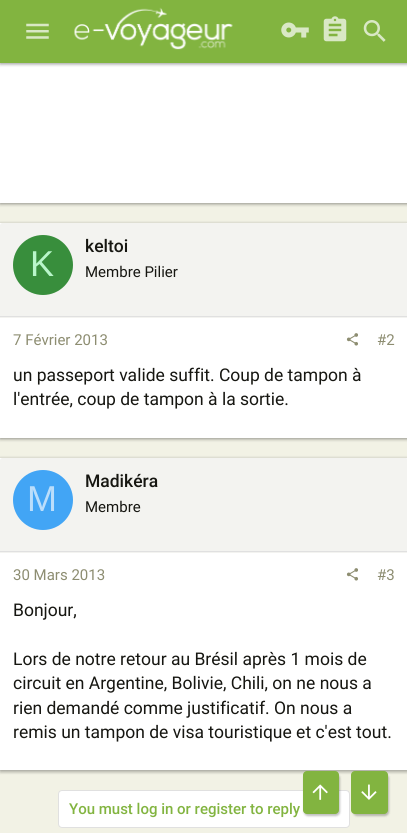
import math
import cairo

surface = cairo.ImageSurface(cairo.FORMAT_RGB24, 407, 833)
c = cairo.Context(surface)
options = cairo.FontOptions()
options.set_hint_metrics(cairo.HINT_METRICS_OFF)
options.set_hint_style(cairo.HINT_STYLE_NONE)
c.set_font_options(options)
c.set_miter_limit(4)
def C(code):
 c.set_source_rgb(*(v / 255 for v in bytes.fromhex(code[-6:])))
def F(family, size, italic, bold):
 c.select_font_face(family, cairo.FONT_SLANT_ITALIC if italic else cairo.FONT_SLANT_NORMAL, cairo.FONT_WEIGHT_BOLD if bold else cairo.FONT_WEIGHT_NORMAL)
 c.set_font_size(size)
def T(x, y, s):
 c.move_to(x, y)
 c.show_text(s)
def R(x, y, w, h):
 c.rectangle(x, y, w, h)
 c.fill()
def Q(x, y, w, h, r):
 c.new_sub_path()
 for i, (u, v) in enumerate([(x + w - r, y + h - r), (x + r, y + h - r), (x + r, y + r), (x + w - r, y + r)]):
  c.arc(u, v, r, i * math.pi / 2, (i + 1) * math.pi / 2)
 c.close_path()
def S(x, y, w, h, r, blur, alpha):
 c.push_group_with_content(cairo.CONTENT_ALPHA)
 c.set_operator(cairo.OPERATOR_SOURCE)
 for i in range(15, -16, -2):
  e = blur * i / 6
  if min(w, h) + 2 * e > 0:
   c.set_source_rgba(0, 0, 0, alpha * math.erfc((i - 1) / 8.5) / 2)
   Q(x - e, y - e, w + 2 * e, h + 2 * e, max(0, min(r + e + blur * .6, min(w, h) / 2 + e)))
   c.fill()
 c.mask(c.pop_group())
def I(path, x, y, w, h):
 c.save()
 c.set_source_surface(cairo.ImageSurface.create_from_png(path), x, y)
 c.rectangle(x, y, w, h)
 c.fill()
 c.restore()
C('f2f2e5')
c.paint()
C('000000')
S(0,-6,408,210,0,2,.2)
S(0,-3,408,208,0,1,.12)
S(0,-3,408,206,0,1,.14)
C('ffffff')
R(0,63,407,140)
C('000000')
S(0,1,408,63,0,2,.2)
S(0,3,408,62,0,1,.12)
S(0,0,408,63,0,1,.14)
C('82b440')
R(0,0,407,63)
I('1.png',26,23,23,16)
I('2.png',74,7,159,43)
I('3.png',281,22,28,16)
I('4.png',323,16,24,26)
I('5.png',363,20,23,22)
C('000000')
S(0,224,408,215,0,2,.2)
S(0,225,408,215,0,1,.12)
S(0,223,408,215,0,1,.14)
C('ffffff')
R(0,223,407,215)
C('f3f3f0')
c.new_path()
c.move_to(2.5,223)
c.line_to(405.5,223)
c.curve_to(407,223,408,224,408,225.5)
c.line_to(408,318)
c.line_to(0,318)
c.line_to(0,225.5)
c.curve_to(0,224,1,223,2.5,223)
c.close_path()
c.fill()
C('e0e0e0')
R(0,316,407,1)
C('388e3c')
c.arc(43,265,30,0,2 * math.pi)
c.fill()
F('Liberation Sans',36,0,0)
C('b9f6ca')
T(30,276,'K')
F('Roboto Medium',17.5,0,0)
C('161611')
T(85,252,'keltoi')
F('Roboto',15,0,0)
T(85,277,'Membre Pilier')
C('8d8d71')
T(13,345,'7 Février 2013')
I('6.png',346,333,12,13)
T(377,345,'#2')
F('Roboto',17.5,0,0)
C('161611')
T(13,381,'un passeport valide suffit. Coup de tampon à')
T(13,405,'l\'entrée, coup de tampon à la sortie.')
C('000000')
S(0,459,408,312,0,2,.2)
S(0,460,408,313,0,1,.12)
S(0,458,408,312,0,1,.14)
C('ffffff')
R(0,458,407,312)
C('f3f3f0')
c.new_path()
c.move_to(2.5,458)
c.line_to(405.5,458)
c.curve_to(407,458,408,459,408,460.5)
c.line_to(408,553)
c.line_to(0,553)
c.line_to(0,460.5)
c.curve_to(0,459,1,458,2.5,458)
c.close_path()
c.fill()
C('e0e0e0')
R(0,551,407,1)
C('42a5f5')
c.arc(43,500,30,0,2 * math.pi)
c.fill()
F('Liberation Sans',36,0,0)
C('bbdefb')
T(27,511,'M')
F('Roboto Medium',17.5,0,0)
C('161611')
T(85,487,'Madikéra')
F('Roboto',15,0,0)
T(85,512,'Membre')
C('8d8d71')
T(13,580,'30 Mars 2013')
I('6.png',346,568,12,13)
T(377,580,'#3')
F('Roboto',17.5,0,0)
C('161611')
T(13,616,'Bonjour,')
T(13,665,'Lors de notre retour au Brésil après 1 mois de')
T(13,689,'circuit en Argentine, Bolivie, Chili, on ne nous a')
T(13,714,'rien demandé comme justificatif. On nous a')
T(13,738,'remis un tampon de visa touristique et c\'est tout.')
C('ffffff')
Q(58.5,790.5,291,37,3.5)
c.fill_preserve()
C('e0e0e0')
c.set_line_width(1)
c.stroke()
F('Roboto Medium',15,0,0)
C('82b440')
T(69,814,'You must log in or register to reply')
C('000000')
S(304,774,36,42,4,1,.25)
C('82b440')
Q(303,771,36,43,4)
c.fill()
I('7.png',312,784,16,16)
C('000000')
S(353,774,36,42,4,1,.25)
C('82b440')
Q(351,771,37,43,4)
c.fill()
I('8.png',361,784,16,16)
surface.write_to_png('o.png')
